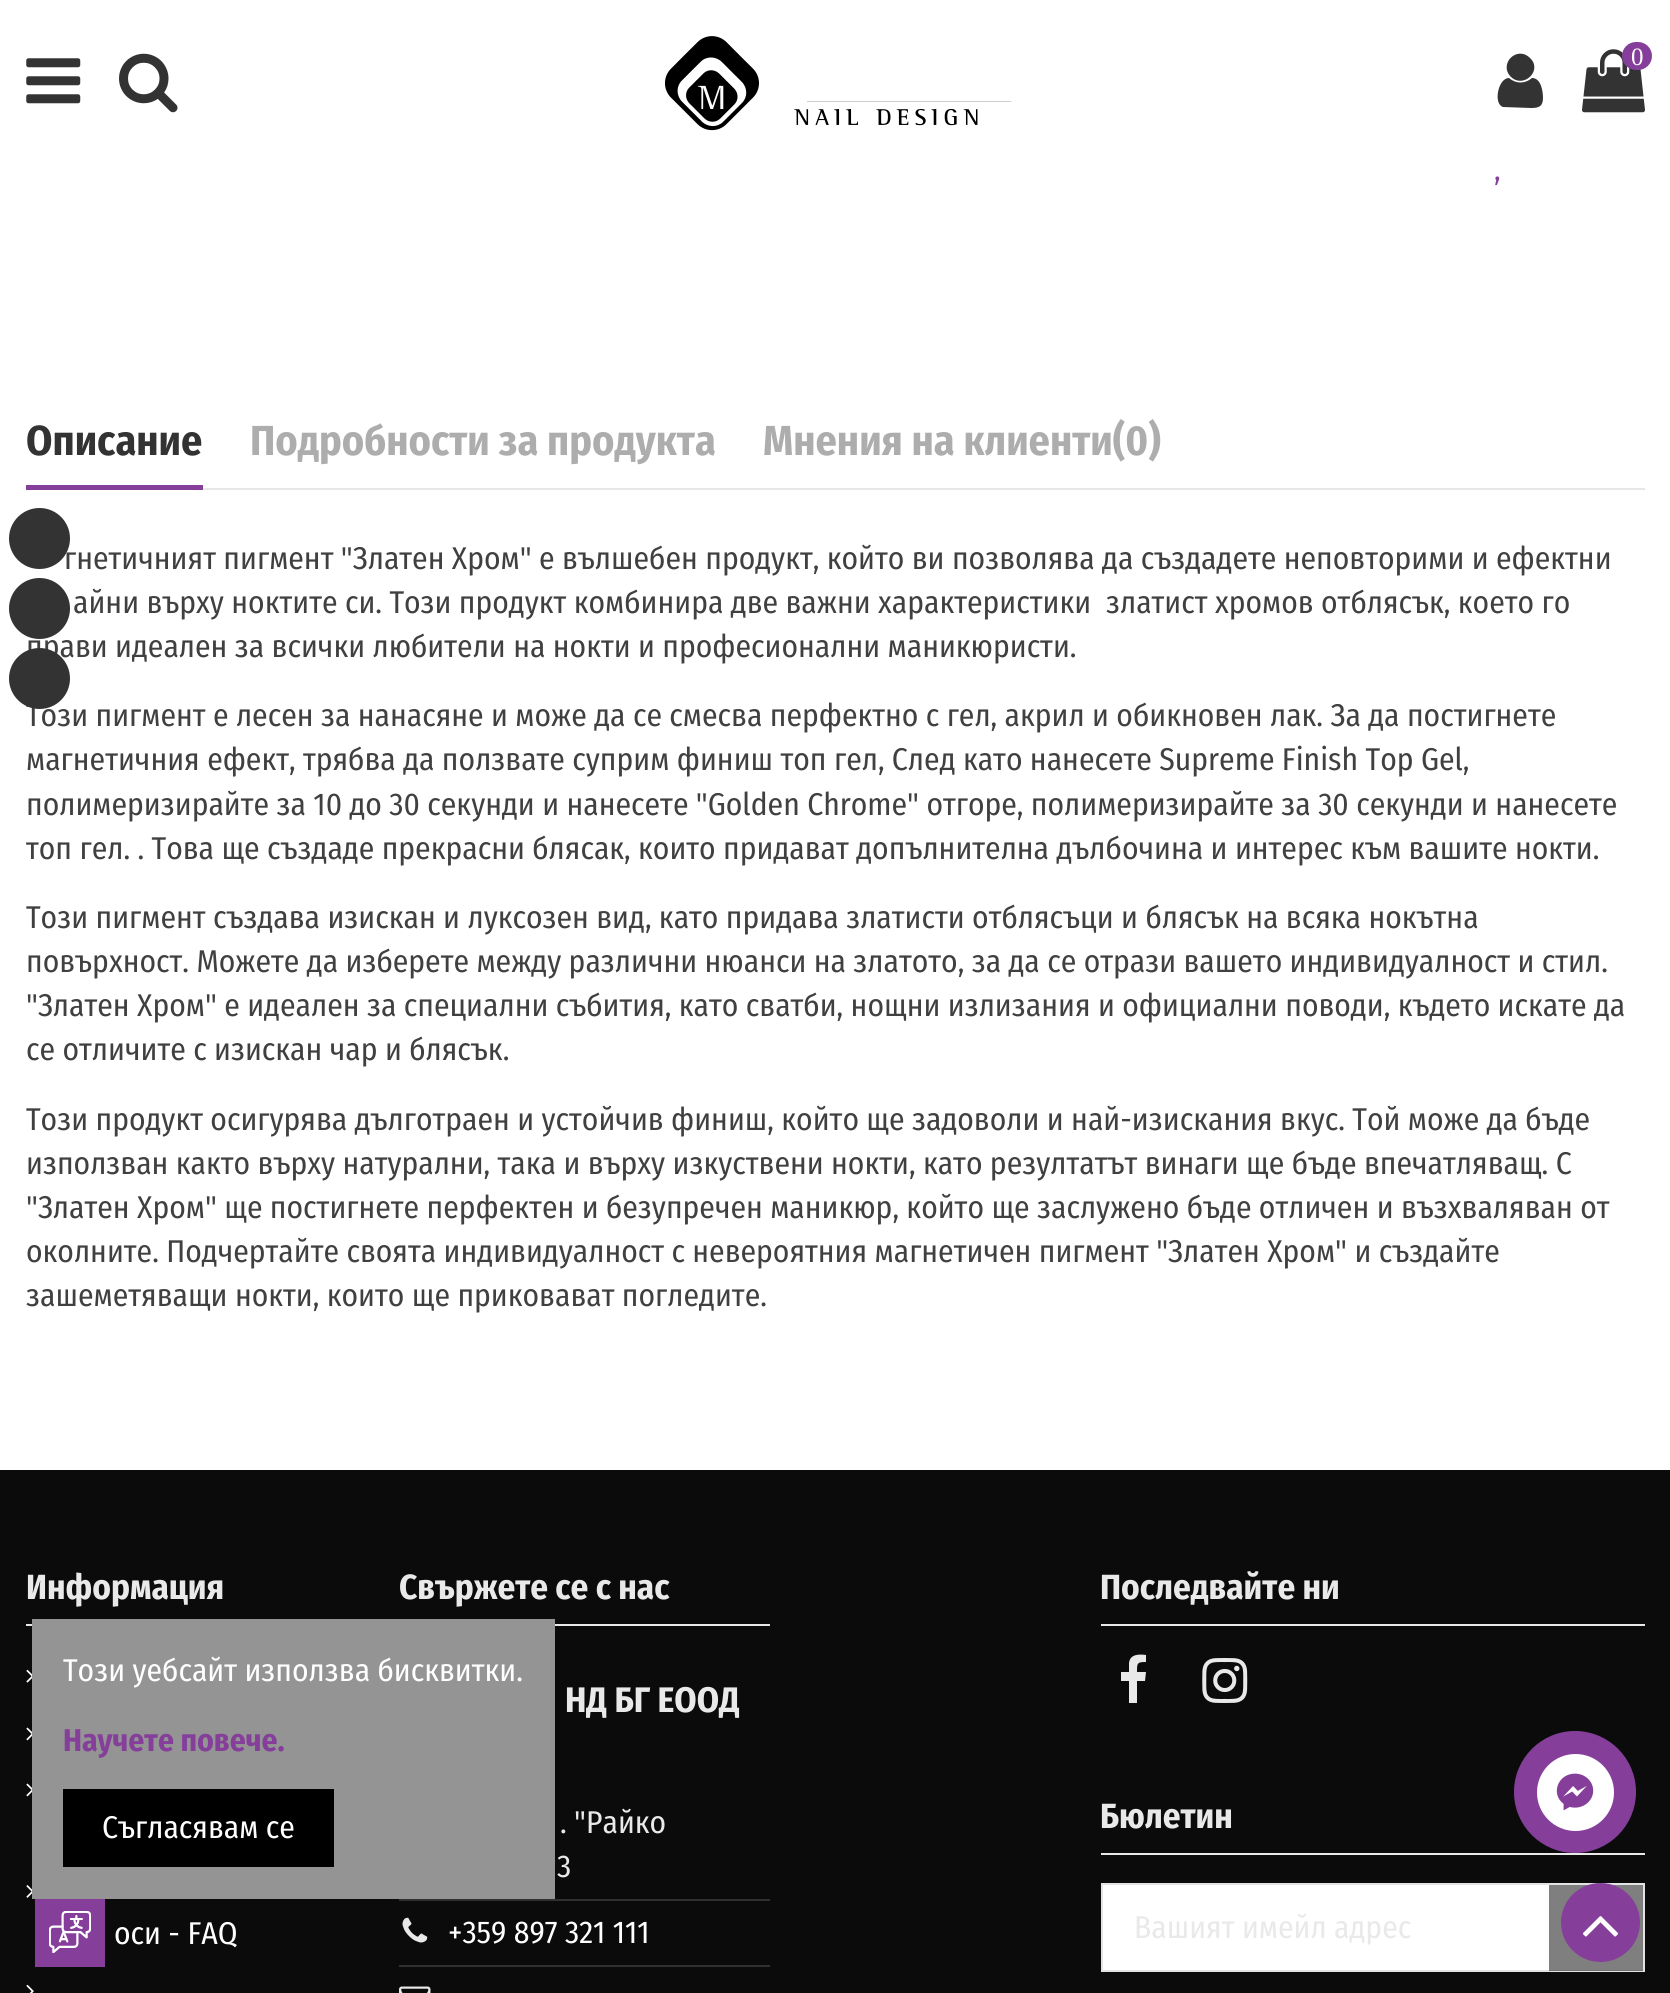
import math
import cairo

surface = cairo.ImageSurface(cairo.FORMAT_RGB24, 1670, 1993)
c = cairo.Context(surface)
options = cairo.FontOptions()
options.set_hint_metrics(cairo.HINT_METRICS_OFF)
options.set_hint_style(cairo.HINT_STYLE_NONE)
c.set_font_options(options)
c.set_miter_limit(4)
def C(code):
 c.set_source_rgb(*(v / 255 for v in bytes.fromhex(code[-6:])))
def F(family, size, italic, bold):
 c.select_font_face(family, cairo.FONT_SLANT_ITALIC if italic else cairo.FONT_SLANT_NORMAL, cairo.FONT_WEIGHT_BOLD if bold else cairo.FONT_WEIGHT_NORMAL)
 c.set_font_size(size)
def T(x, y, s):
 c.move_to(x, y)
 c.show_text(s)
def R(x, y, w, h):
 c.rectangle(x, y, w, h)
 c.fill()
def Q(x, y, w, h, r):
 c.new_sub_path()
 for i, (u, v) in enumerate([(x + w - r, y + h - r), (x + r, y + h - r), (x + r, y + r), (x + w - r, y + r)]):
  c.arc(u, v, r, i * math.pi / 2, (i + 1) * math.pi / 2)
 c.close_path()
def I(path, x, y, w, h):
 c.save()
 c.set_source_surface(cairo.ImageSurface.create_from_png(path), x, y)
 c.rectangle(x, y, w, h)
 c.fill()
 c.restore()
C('ffffff')
c.paint()
I('1.png',26,58,55,46)
I('2.png',119,53,59,60)
I('3.png',665,36,347,95)
C('333333')
c.new_path()
c.move_to(1543,98)
c.curve_to(1543,107,1538,108,1531,108)
c.line_to(1503,107)
c.curve_to(1493,104,1498,78,1509,78)
c.curve_to(1516,84,1525,84,1532,78)
c.curve_to(1541,78,1543,91,1543,98)
c.close_path()
c.move_to(1530,58)
c.curve_to(1543,70,1524,89,1511,77)
c.curve_to(1498,64,1517,45,1530,58)
c.close_path()
c.fill()
I('4.png',1582,49,63,64)
C('853f9b')
Q(1622,42,30,28,14)
c.fill()
F('Liberation Serif',25,0,0)
C('ffffff')
T(1631,65,'0')
F('Fira Sans Condensed',31.5,0,0)
C('404040')
T(64,569,'гнетичният пигмент "Златен Хром" е вълшебен продукт, който ви позволява да създадете неповторими и ефектни')
C('333333')
c.new_path()
c.arc(39.5,538.5,30.5,0,2 * math.pi)
c.fill()
C('404040')
T(26,657,'прави идеален за всички любители на нокти и професионални маникюристи.')
C('333333')
c.new_path()
c.arc(39.5,608.5,30.5,0,2 * math.pi)
c.fill()
C('404040')
T(26,726,'Този пигмент е лесен за нанасяне и може да се смесва перфектно с гел, акрил и обикновен лак. За да постигнете')
C('333333')
c.new_path()
c.arc(39.5,678.5,30.5,0,2 * math.pi)
c.fill()
C('853f9b')
T(1494,180,',')
C('e7e7e7')
R(203,488,1442,2)
C('853f9b')
R(26,485,177,5)
F('Fira Sans Condensed',42,0,1)
C('333333')
T(26,455,'Описание')
C('adadad')
T(250,455,'Подробности за продукта')
T(763,455,'Мнения на клиенти(0)')
F('Fira Sans Condensed',31.5,0,0)
C('404040')
T(73,613,'айни върху ноктите си. Този продукт комбинира две важни характеристики  златист хромов отблясък, което го')
T(26,770,'магнетичния ефект, трябва да ползвате суприм финиш топ гел, След като нанесете Supreme Finish Top Gel,')
T(26,815,'полимеризирайте за 10 до 30 секунди и нанесете "Golden Chrome" отгоре, полимеризирайте за 30 секунди и нанесете')
T(26,859,'топ гел. . Това ще създаде прекрасни блясак, които придават допълнителна дълбочина и интерес към вашите нокти.')
T(26,928,'Този пигмент създава изискан и луксозен вид, като придава златисти отблясъци и блясък на всяка нокътна')
T(26,972,'повърхност. Можете да изберете между различни нюанси на златото, за да се отрази вашето индивидуалност и стил.')
T(26,1016,'"Златен Хром" е идеален за специални събития, като сватби, нощни излизания и официални поводи, където искате да')
T(26,1060,'се отличите с изискан чар и блясък.')
T(26,1130,'Този продукт осигурява дълготраен и устойчив финиш, който ще задоволи и най-изискания вкус. Той може да бъде')
T(26,1174,'използван както върху натурални, така и върху изкуствени нокти, като резултатът винаги ще бъде впечатляващ. С')
T(26,1218,'"Златен Хром" ще постигнете перфектен и безупречен маникюр, който ще заслужено бъде отличен и възхваляван от')
T(26,1262,'околните. Подчертайте своята индивидуалност с невероятния магнетичен пигмент "Златен Хром" и създайте')
T(26,1306,'зашеметяващи нокти, които ще приковават погледите.')
C('0b0b0b')
R(0,1470,1670,523)
C('e9e9e9')
R(26,1624,6,2)
F('Fira Sans Condensed',35,0,1)
T(26,1599,'Информация')
I('5.png',26,1669,6,14)
I('6.png',26,1727,6,14)
I('6.png',26,1783,6,14)
I('7.png',26,1885,6,13)
F('Fira Sans Condensed',31.5,0,0)
C('ffffff')
T(114,1944,'оси - FAQ')
I('8.png',26,1984,8,9)
C('e9e9e9')
R(555,1624,215,2)
F('Fira Sans Condensed',35,0,1)
T(399,1599,'Свържете се с нас')
F('Fira Sans Condensed',35.5,0,1)
T(565,1712,'НД БГ ЕООД')
F('Fira Sans Condensed',31.5,0,0)
T(560,1833,'. "Райко')
T(557,1877,'3')
C('303030')
R(399,1899,371,2)
I('9.png',402,1917,26,26)
C('ffffff')
T(448,1943,'+359 897 321 111')
C('303030')
R(399,1965,371,2)
I('10.png',399,1986,32,7)
C('e9e9e9')
R(1101,1624,544,2)
F('Fira Sans Condensed',35,0,1)
T(1100,1599,'Последвайте ни')
c.new_path()
c.move_to(1146,1655)
c.line_to(1146,1662)
c.curve_to(1137,1662,1137,1663,1137,1672)
c.line_to(1146,1672)
c.line_to(1145,1681)
c.line_to(1137,1681)
c.line_to(1137,1703)
c.line_to(1129,1703)
c.line_to(1129,1681)
c.line_to(1121,1681)
c.line_to(1121,1672)
c.line_to(1129,1672)
c.line_to(1129,1663)
c.curve_to(1130,1654,1139,1654,1146,1655)
c.close_path()
c.fill()
I('11.png',1202,1658,46,45)
R(1101,1853,544,2)
T(1100,1828,'Бюлетин')
C('ffffff')
c.rectangle(1102,1884,542,87)
c.fill_preserve()
C('e3e3e3')
c.stroke()
F('Fira Sans Condensed',31.5,0,0)
C('e9e9e9')
T(1134,1938,'Вашият имейл адрес')
c.set_source_rgba(0,0,0,0.5)
R(1549,1885,94,86)
C('853f9b')
c.new_path()
c.arc(1575,1792,61,0,2 * math.pi)
c.fill()
C('ffffff')
c.arc(1575.5,1792.5,38.5,0,2 * math.pi)
c.fill()
I('12.png',1556,1773,38,38)
C('949494')
R(32,1619,523,280)
C('ffffff')
T(63,1681,'Този уебсайт използва бисквитки.')
F('Fira Sans Condensed',31.5,0,1)
C('853f9b')
T(63,1751,'Научете повече.')
C('000000')
R(63,1789,271,78)
F('Fira Sans Condensed',31.5,0,0)
C('ffffff')
T(102,1838,'Съгласявам се')
C('853f9b')
R(35,1899,70,68)
I('13.png',49,1911,42,42)
c.arc(1600.5,1922.5,39.5,0,2 * math.pi)
c.fill()
I('14.png',1583,1916,35,21)
surface.write_to_png('o.png')
